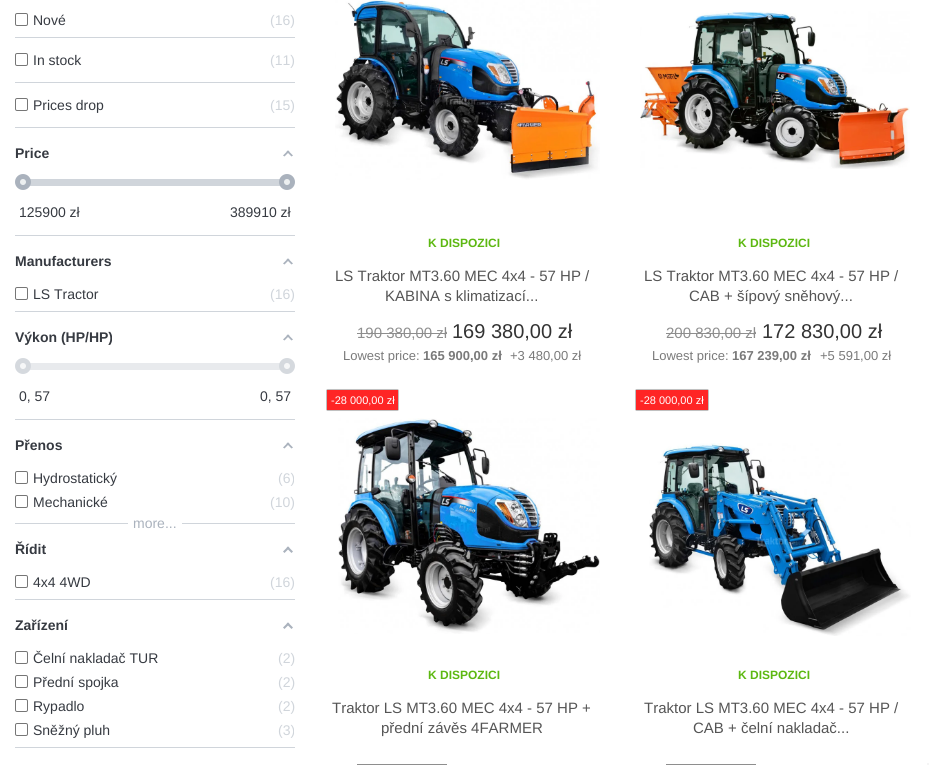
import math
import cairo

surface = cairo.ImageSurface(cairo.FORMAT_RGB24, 929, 765)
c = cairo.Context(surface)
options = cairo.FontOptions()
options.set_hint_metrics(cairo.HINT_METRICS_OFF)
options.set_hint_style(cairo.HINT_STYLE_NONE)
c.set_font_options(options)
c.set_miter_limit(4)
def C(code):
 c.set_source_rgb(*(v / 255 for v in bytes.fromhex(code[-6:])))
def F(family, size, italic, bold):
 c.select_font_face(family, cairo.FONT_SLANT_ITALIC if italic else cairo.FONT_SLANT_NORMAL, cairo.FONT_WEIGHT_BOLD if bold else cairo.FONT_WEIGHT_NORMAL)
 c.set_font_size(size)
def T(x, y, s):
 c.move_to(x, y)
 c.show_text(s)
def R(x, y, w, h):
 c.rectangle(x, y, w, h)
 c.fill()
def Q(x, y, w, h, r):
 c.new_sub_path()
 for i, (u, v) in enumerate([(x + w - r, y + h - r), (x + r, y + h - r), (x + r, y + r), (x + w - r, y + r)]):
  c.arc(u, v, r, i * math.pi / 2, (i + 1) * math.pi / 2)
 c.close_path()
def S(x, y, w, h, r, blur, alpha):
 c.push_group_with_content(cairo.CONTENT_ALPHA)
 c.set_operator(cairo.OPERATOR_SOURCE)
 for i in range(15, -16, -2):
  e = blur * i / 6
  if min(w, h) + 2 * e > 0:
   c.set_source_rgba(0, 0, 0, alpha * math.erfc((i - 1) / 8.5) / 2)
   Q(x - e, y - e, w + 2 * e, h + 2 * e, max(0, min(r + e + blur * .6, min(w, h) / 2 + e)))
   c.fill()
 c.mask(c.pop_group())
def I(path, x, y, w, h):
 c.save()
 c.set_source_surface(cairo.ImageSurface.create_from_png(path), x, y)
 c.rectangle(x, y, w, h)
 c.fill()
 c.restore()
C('ffffff')
c.paint()
C('d0d5db')
R(15,37,280,1)
Q(15.5,13.5,12,12,1.5)
C('767676')
c.set_line_width(1)
c.stroke()
F('Liberation Sans',14,0,0)
C('363a41')
T(33,25,'Nové')
C('d0d5db')
T(270,25,'(16)')
R(15,82,280,1)
Q(15.5,53.5,12,12,1.5)
C('767676')
c.stroke()
C('363a41')
T(33,65,'In stock')
C('d0d5db')
T(270,65,'(11)')
R(15,127,280,1)
Q(15.5,98.5,12,12,1.5)
C('767676')
c.stroke()
C('363a41')
T(33,110,'Prices drop')
C('d0d5db')
T(270,110,'(15)')
R(15,235,280,1)
F('Liberation Sans',14,0,1)
C('363a41')
T(15,158,'Price')
C('aab2bd')
c.new_path()
c.move_to(288,150.5)
c.line_to(293,155.5)
c.line_to(291.5,156.5)
c.line_to(286.5,151.5)
c.close_path()
c.fill()
c.new_path()
c.move_to(288,150.5)
c.line_to(289.5,151.5)
c.line_to(284.5,156.5)
c.line_to(283,155.5)
c.close_path()
c.fill()
C('d0d5db')
R(23,179,264,7)
C('eceff0')
c.arc(23,182,5.5,0,2 * math.pi)
c.fill_preserve()
C('aab2bd')
c.set_line_width(5)
c.stroke()
C('eceff0')
c.arc(287,182,5.5,0,2 * math.pi)
c.fill_preserve()
C('aab2bd')
c.stroke()
F('Liberation Sans',14,0,0)
C('363a41')
T(19,217,'125900 zł')
T(230,217,'389910 zł')
C('d0d5db')
R(15,311,280,1)
F('Liberation Sans',14,0,1)
C('363a41')
T(15,266,'Manufacturers')
C('aab2bd')
c.new_path()
c.move_to(288,258.5)
c.line_to(293,263.5)
c.line_to(291.5,264.5)
c.line_to(286.5,259.5)
c.close_path()
c.fill()
c.new_path()
c.move_to(288,258.5)
c.line_to(289.5,259.5)
c.line_to(284.5,264.5)
c.line_to(283,263.5)
c.close_path()
c.fill()
Q(15.5,287.5,12,12,1.5)
C('767676')
c.set_line_width(1)
c.stroke()
F('Liberation Sans',14,0,0)
C('363a41')
T(33,299,'LS Tractor')
C('d0d5db')
T(270,299,'(16)')
R(15,419,280,1)
F('Liberation Sans',14,0,1)
C('363a41')
T(15,342,'Výkon (HP/HP)')
C('aab2bd')
c.new_path()
c.move_to(288,334.5)
c.line_to(293,339.5)
c.line_to(291.5,340.5)
c.line_to(286.5,335.5)
c.close_path()
c.fill()
c.new_path()
c.move_to(288,334.5)
c.line_to(289.5,335.5)
c.line_to(284.5,340.5)
c.line_to(283,339.5)
c.close_path()
c.fill()
C('e8eaed')
R(23,363,264,7)
C('f6f7f8')
c.arc(23,366,5.5,0,2 * math.pi)
c.fill_preserve()
C('d5d9de')
c.set_line_width(5)
c.stroke()
C('f6f7f8')
c.arc(287,366,5.5,0,2 * math.pi)
c.fill_preserve()
C('d5d9de')
c.stroke()
F('Liberation Sans',14,0,0)
C('363a41')
T(19,401,'0, 57')
T(260,401,'0, 57')
C('d0d5db')
R(15,523,280,1)
F('Liberation Sans',14,0,1)
C('363a41')
T(15,450,'Přenos')
C('aab2bd')
c.new_path()
c.move_to(288,442.5)
c.line_to(293,447.5)
c.line_to(291.5,448.5)
c.line_to(286.5,443.5)
c.close_path()
c.fill()
c.new_path()
c.move_to(288,442.5)
c.line_to(289.5,443.5)
c.line_to(284.5,448.5)
c.line_to(283,447.5)
c.close_path()
c.fill()
Q(15.5,471.5,12,12,1.5)
C('767676')
c.set_line_width(1)
c.stroke()
F('Liberation Sans',14,0,0)
C('363a41')
T(33,483,'Hydrostatický')
C('d0d5db')
T(278,483,'(6)')
Q(15.5,495.5,12,12,1.5)
C('767676')
c.stroke()
C('363a41')
T(33,507,'Mechanické')
C('d0d5db')
T(270,507,'(10)')
C('ffffff')
R(128,523,54,1)
C('aab2bd')
T(133,528,'more...')
C('d0d5db')
R(15,599,280,1)
F('Liberation Sans',14,0,1)
C('363a41')
T(15,554,'Řídit')
C('aab2bd')
c.new_path()
c.move_to(288,546.5)
c.line_to(293,551.5)
c.line_to(291.5,553)
c.line_to(286.5,548)
c.close_path()
c.fill()
c.new_path()
c.move_to(288,546.5)
c.line_to(289.5,548)
c.line_to(284.5,553)
c.line_to(283,551.5)
c.close_path()
c.fill()
Q(15.5,575.5,12,12,1.5)
C('767676')
c.stroke()
F('Liberation Sans',14,0,0)
C('363a41')
T(33,587,'4x4 4WD')
C('d0d5db')
T(270,587,'(16)')
R(15,747,280,1)
F('Liberation Sans',14,0,1)
C('363a41')
T(15,630,'Zařízení')
C('aab2bd')
c.new_path()
c.move_to(288,622.5)
c.line_to(293,627.5)
c.line_to(291.5,629)
c.line_to(286.5,624)
c.close_path()
c.fill()
c.new_path()
c.move_to(288,622.5)
c.line_to(289.5,624)
c.line_to(284.5,629)
c.line_to(283,627.5)
c.close_path()
c.fill()
Q(15.5,651.5,12,12,1.5)
C('767676')
c.stroke()
F('Liberation Sans',14,0,0)
C('363a41')
T(33,663,'Čelní nakladač TUR')
C('d0d5db')
T(278,663,'(2)')
Q(15.5,675.5,12,12,1.5)
C('767676')
c.stroke()
C('363a41')
T(33,687,'Přední spojka')
C('d0d5db')
T(278,687,'(2)')
Q(15.5,699.5,12,12,1.5)
C('767676')
c.stroke()
C('363a41')
T(33,711,'Rypadlo')
C('d0d5db')
T(278,711,'(2)')
Q(15.5,723.5,12,12,1.5)
C('767676')
c.stroke()
C('363a41')
T(33,735,'Sněžný pluh')
C('d0d5db')
T(278,735,'(3)')
I('1.png',335,0,265,180)
F('Liberation Sans',12,0,1)
C('5db812')
T(428,247,'K DISPOZICI')
F('Liberation Sans',15,0,0)
C('555555')
T(335,281,'LS Traktor MT3.60 MEC 4x4 - 57 HP /')
T(385,301,'KABINA s klimatizací...')
C('8e8e8e')
T(357,338,'190 380,00 zł')
R(357,333,90,1)
F('Liberation Sans',20,0,0)
C('333333')
T(452,338,'169 380,00 zł')
F('Liberation Sans',13,0,0)
C('7a7a7a')
T(343,360,'Lowest price:')
F('Liberation Sans',13,0,1)
T(423,360,'165 900,00 zł')
F('Liberation Sans',13,0,0)
T(510,360,'+3 480,00 zł')
I('2.png',640,11,270,158)
F('Liberation Sans',12,0,1)
C('5db812')
T(738,247,'K DISPOZICI')
F('Liberation Sans',15,0,0)
C('555555')
T(644,281,'LS Traktor MT3.60 MEC 4x4 - 57 HP /')
T(689,301,'CAB + šípový sněhový...')
C('8e8e8e')
T(666,338,'200 830,00 zł')
R(666,333,90,1)
F('Liberation Sans',20,0,0)
C('333333')
T(762,338,'172 830,00 zł')
F('Liberation Sans',13,0,0)
C('7a7a7a')
T(652,360,'Lowest price:')
F('Liberation Sans',13,0,1)
T(732,360,'167 239,00 zł')
F('Liberation Sans',13,0,0)
T(820,360,'+5 591,00 zł')
C('000000')
S(327,390,71,20,0,.5,1)
C('ff2525')
R(327,390,71,20)
F('Liberation Sans',11,0,0)
C('ffffff')
T(331,404,'-28 000,00 zł')
C('8e8e8e')
R(357,764,90,1)
I('3.png',338,418,262,216)
F('Liberation Sans',12,0,1)
C('5db812')
T(428,679,'K DISPOZICI')
F('Liberation Sans',15,0,0)
C('555555')
T(332,713,'Traktor LS MT3.60 MEC 4x4 - 57 HP +')
T(381,733,'přední závěs 4FARMER')
C('000000')
S(636,390,72,20,0,.5,1)
C('ff2525')
R(636,390,72,20)
F('Liberation Sans',11,0,0)
C('ffffff')
T(640,404,'-28 000,00 zł')
C('8e8e8e')
R(666,764,90,1)
I('4.png',649,443,262,193)
F('Liberation Sans',12,0,1)
C('5db812')
T(738,679,'K DISPOZICI')
F('Liberation Sans',15,0,0)
C('555555')
T(644,713,'Traktor LS MT3.60 MEC 4x4 - 57 HP /')
T(693,733,'CAB + čelní nakladač...')
C('f5f5f5')
R(927,763,2,2)
surface.write_to_png('o.png')
